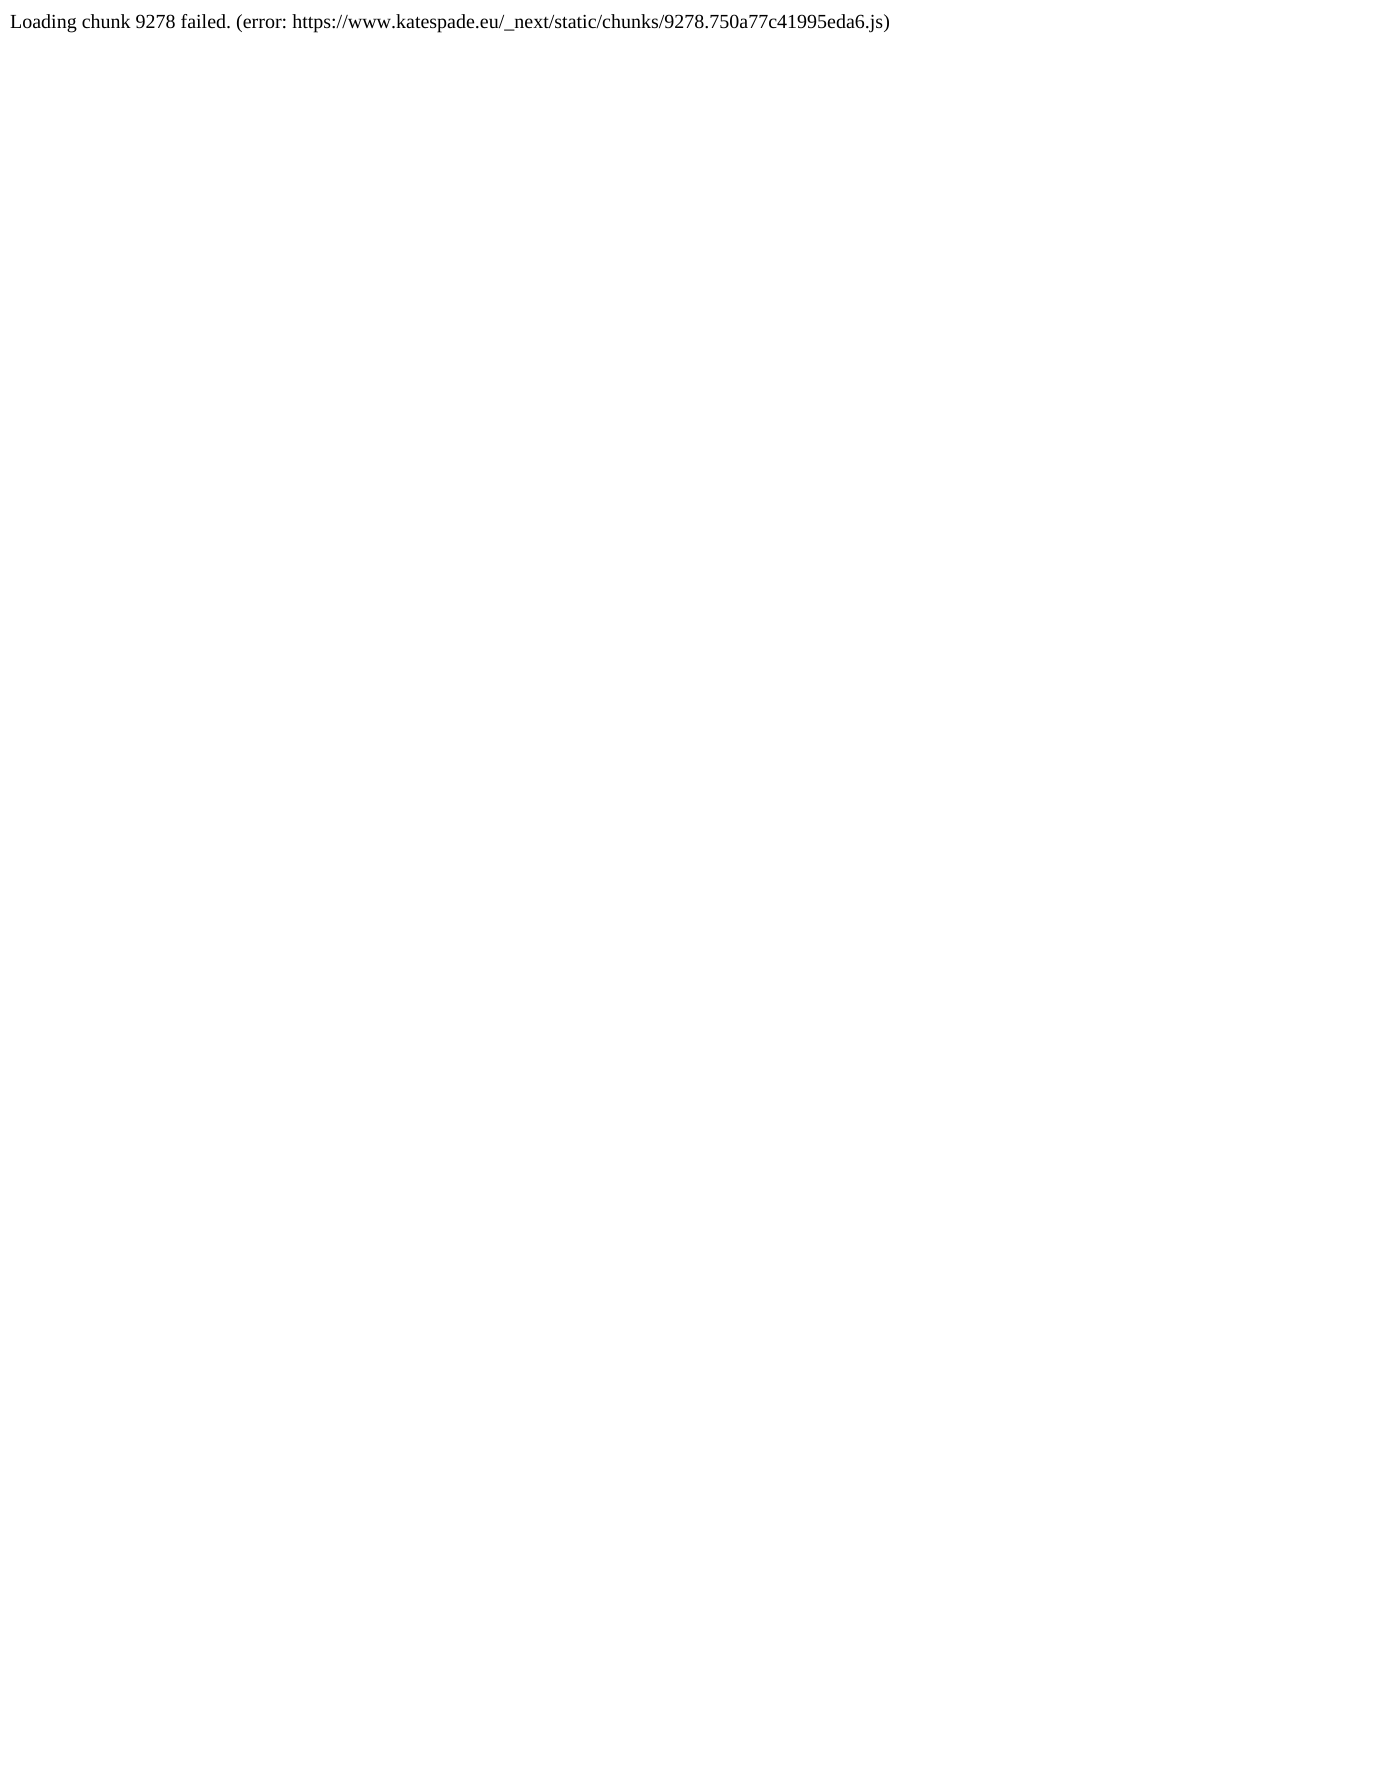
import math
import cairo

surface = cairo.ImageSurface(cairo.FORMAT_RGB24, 1389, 1779)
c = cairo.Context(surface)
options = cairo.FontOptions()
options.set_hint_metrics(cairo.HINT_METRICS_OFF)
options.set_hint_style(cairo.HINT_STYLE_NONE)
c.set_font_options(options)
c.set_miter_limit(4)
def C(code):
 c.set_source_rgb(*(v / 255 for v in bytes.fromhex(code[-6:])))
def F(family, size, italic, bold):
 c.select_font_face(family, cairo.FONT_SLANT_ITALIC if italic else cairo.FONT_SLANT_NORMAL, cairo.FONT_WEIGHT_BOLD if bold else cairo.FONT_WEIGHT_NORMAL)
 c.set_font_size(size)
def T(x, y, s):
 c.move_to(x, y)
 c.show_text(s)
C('ffffff')
c.paint()
F('Liberation Serif',20,0,0)
C('000000')
T(10,28,'Loading chunk 9278 failed. (error: https://www.katespade.eu/_next/static/chunks/9278.750a77c41995eda6.js)')
surface.write_to_png('o.png')
